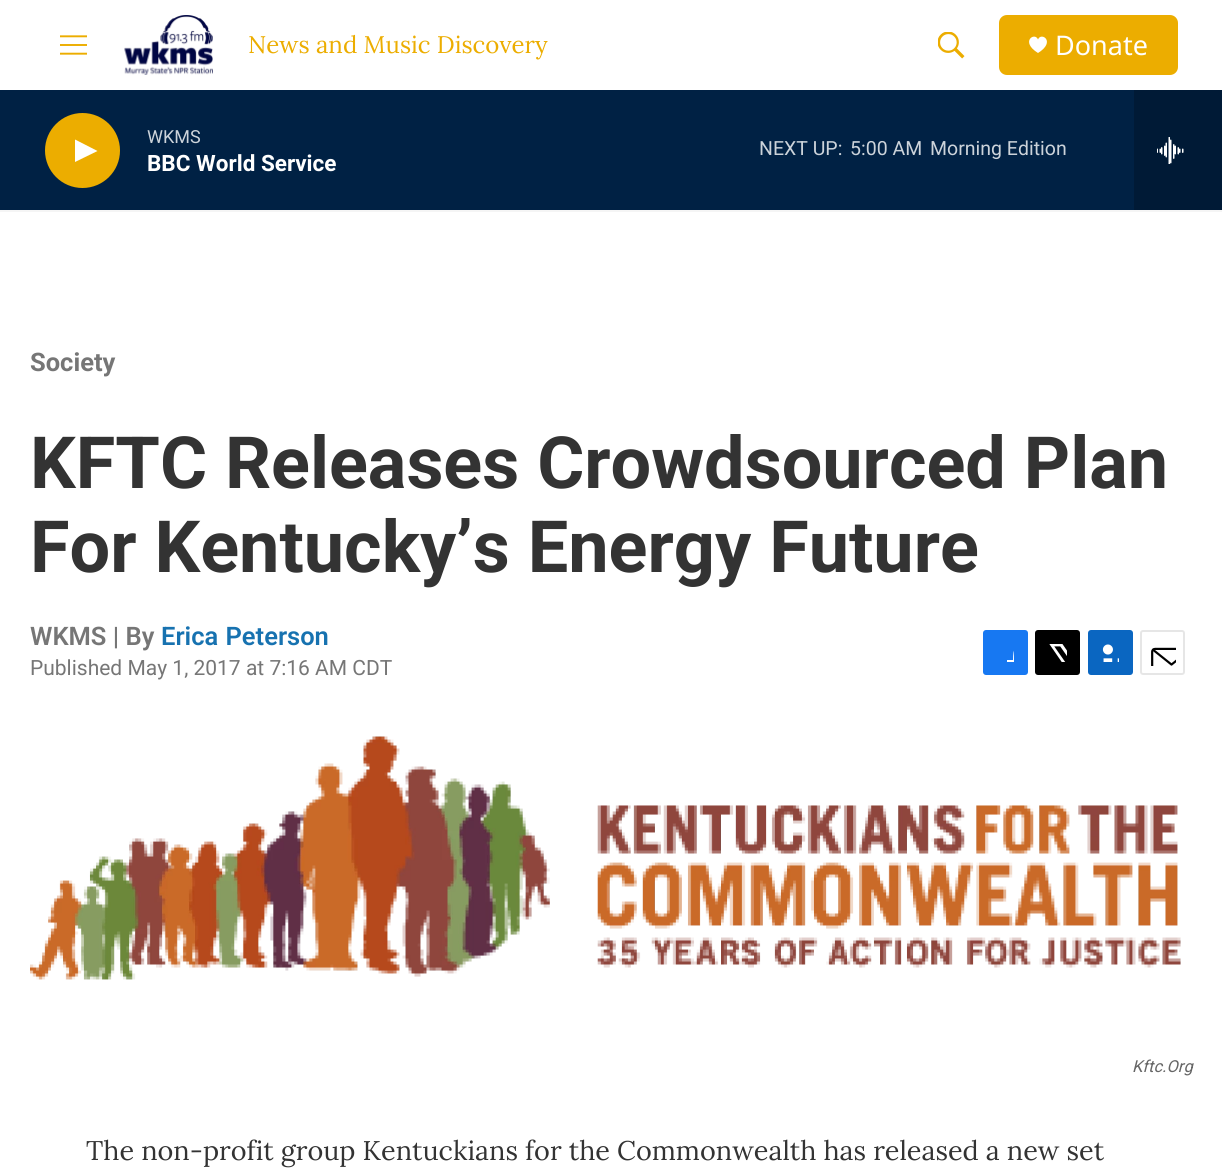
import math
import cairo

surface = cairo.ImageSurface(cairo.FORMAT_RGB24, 1222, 1173)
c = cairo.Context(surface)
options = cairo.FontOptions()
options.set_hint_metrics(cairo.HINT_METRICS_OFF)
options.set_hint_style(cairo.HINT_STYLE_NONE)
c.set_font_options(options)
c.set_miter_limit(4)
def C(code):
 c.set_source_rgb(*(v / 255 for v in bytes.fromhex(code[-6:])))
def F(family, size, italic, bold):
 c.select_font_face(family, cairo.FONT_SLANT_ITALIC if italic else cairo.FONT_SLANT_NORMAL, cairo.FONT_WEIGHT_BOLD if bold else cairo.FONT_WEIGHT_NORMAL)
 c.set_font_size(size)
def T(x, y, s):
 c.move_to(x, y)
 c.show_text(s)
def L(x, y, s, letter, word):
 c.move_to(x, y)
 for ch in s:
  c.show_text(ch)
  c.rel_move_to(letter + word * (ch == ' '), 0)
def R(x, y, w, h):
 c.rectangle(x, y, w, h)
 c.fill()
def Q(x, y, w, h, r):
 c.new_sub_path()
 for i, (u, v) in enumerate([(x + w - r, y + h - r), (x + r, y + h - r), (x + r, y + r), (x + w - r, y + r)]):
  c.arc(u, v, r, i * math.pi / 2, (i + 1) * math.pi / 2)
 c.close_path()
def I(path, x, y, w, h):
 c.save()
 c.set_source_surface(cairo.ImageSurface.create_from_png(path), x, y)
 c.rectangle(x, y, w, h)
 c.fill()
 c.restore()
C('ffffff')
c.paint()
C('f5f5f5')
R(0,210,1222,2)
I('1.png',60,35,27,20)
I('2.png',124,15,89,60)
F('Lora',24,0,0)
C('ecad00')
T(248,53,'News and Music Discovery')
I('3.png',938,32,27,27)
Q(999,15,179,60,8)
c.fill()
C('ffffff')
c.new_path()
c.move_to(1038,39.5)
c.curve_to(1035,31.5,1019.5,41.5,1038,53)
c.curve_to(1056.5,41.5,1041,31.5,1038,39.5)
c.close_path()
c.fill()
F('Noto Sans',27,0,0)
T(1055,55,'Donate')
C('002144')
R(0,90,1134,120)
C('ecad00')
c.new_path()
c.arc(82.5,150.5,37.5,0,2 * math.pi)
c.fill()
C('ffffff')
c.new_path()
c.move_to(75,139.5)
c.line_to(97.5,151)
c.line_to(75,162)
c.close_path()
c.fill()
F('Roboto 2',18,0,0)
C('ccd3da')
T(147,143,'WKMS')
F('Roboto 2',22.5,0,1)
C('ffffff')
T(147,171,'BBC World Service')
F('Roboto 2',19.5,0,0)
C('ccd3da')
T(759,155,'NEXT UP:')
T(850,155,'5:00 AM')
T(930,155,'Morning Edition')
C('001a36')
R(1134,90,88,120)
I('4.png',1157,137,27,27)
F('Roboto',25.5,0,1)
C('767676')
T(30,371,'Society')
F('Roboto',72,0,1)
C('333333')
T(30,488,'KFTC Releases Crowdsourced Plan')
T(30,572,'For Kentucky’s Energy Future')
F('Roboto SemiBold',25.5,0,0)
C('767676')
T(30,645,'WKMS | By')
C('1772b0')
L(161,645,'Erica Peterson',0,1)
F('Roboto',21,0,0)
C('767676')
T(30,675,'Published May 1, 2017 at 7:16 AM CDT')
C('1778f2')
Q(983,630,45,45,3)
c.fill()
c.save()
c.rectangle(996,644,18,18)
c.clip()
C('ffffff')
c.new_path()
c.move_to(1021,675)
c.line_to(1013,675)
c.line_to(1013,668)
c.line_to(1007,668)
c.line_to(1007,660)
c.line_to(1013,660)
c.curve_to(1013,648.5,1015,642.5,1028,644)
c.line_to(1028,651)
c.curve_to(1020,651,1021,653.5,1021,660)
c.line_to(1028,660)
c.line_to(1027,668)
c.line_to(1021,668)
c.close_path()
c.fill()
c.restore()
C('000000')
Q(1035,630,45,45,3)
c.fill()
I('5.png',1049,644,18,18)
C('0a66c1')
Q(1088,630,45,45,3)
c.fill()
I('6.png',1102,644,17,18)
Q(1141,631,43,43,2)
C('e6e6e6')
c.stroke()
I('7.png',1151,647,25,19)
I('8.png',30,736,1151,244)
F('Roboto',16.5,1,0)
C('666666')
T(1132,1072,'Kftc.Org')
F('Lora',27,0,0)
C('333333')
T(86,1160,'The non-profit group Kentuckians for the Commonwealth has released a new set')
surface.write_to_png('o.png')
